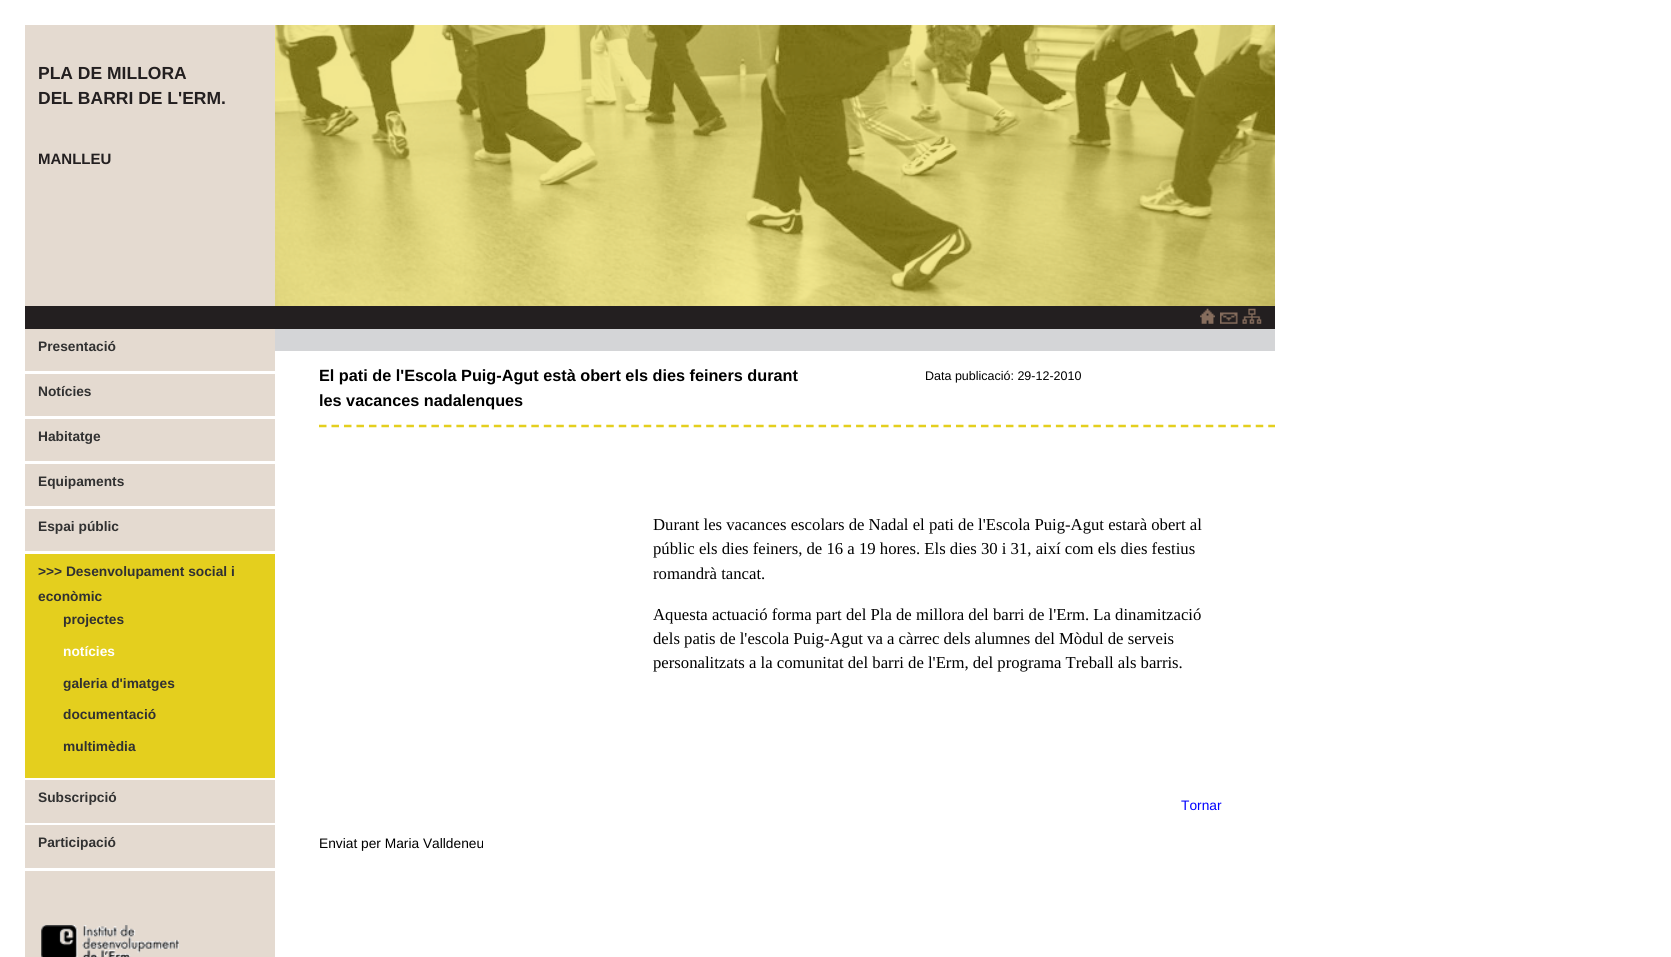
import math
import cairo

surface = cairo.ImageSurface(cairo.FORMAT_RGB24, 1671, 957)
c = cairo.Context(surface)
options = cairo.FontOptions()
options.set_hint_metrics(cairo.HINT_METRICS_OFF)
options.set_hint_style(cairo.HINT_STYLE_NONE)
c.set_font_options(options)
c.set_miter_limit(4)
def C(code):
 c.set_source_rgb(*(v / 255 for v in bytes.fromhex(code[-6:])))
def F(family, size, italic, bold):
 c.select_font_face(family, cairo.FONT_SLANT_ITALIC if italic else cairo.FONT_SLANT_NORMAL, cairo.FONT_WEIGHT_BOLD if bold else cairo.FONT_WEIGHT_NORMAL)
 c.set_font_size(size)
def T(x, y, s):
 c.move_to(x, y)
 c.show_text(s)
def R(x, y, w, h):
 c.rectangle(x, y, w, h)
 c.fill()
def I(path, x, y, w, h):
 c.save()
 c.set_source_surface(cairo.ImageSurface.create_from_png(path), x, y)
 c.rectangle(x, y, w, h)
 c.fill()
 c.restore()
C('ffffff')
c.paint()
C('e4dad0')
R(25,25,250,281)
F('Liberation Sans',17.5,0,1)
C('231f20')
T(38,79,'PLA DE MILLORA')
T(38,104,'DEL BARRI DE L\'ERM.')
F('Liberation Sans',15,0,1)
T(38,164,'MANLLEU')
I('1.png',275,25,1000,281)
C('e4dad0')
R(25,329,250,628)
C('231f20')
R(25,306,1250,23)
C('ffffff')
R(25,371,250,3)
F('Liberation Sans',13.75,0,1)
C('313131')
T(38,351,'Presentació')
C('ffffff')
R(25,416,250,3)
C('313131')
T(38,396,'Notícies')
C('ffffff')
R(25,461,250,3)
C('313131')
T(38,441,'Habitatge')
C('ffffff')
R(25,506,250,3)
C('313131')
T(38,486,'Equipaments')
C('ffffff')
R(25,551,250,3)
C('313131')
T(38,531,'Espai públic')
C('e4cf1e')
R(25,554,250,224)
C('313131')
T(38,576,'>>> Desenvolupament social i')
T(38,601,'econòmic')
C('ffffff')
R(25,778,250,2)
C('313131')
T(63,624,'projectes')
C('ffffff')
T(63,656,'notícies')
C('313131')
T(63,688,'galeria d\'imatges')
T(63,719,'documentació')
T(63,751,'multimèdia')
C('ffffff')
R(25,823,250,2)
C('313131')
T(38,802,'Subscripció')
C('ffffff')
R(25,868,250,3)
C('313131')
T(38,847,'Participació')
I('2.png',41,925,138,32)
I('3.png',1200,308,15,16)
I('4.png',1220,312,18,12)
I('5.png',1242,308,20,16)
C('d4d5d7')
R(275,329,1000,22)
F('Liberation Sans',16.25,0,1)
C('000000')
T(319,381,'El pati de l\'Escola Puig-Agut està obert els dies feiners durant')
T(319,406,'les vacances nadalenques')
F('Liberation Sans',12.5,0,0)
T(925,380,'Data publicació: 29-12-2010')
c.new_path()
c.move_to(319,426)
c.line_to(1275,426)
C('e4cf1e')
c.set_line_width(2.5)
c.set_dash([7.5,4.99])
c.stroke()
F('Liberation Serif',16.7,0,0)
C('000000')
T(653,530,'Durant les vacances escolars de Nadal el pati de l\'Escola Puig-Agut estarà obert al')
T(653,554,'públic els dies feiners, de 16 a 19 hores. Els dies 30 i 31, així com els dies festius')
T(653,579,'romandrà tancat.')
T(653,620,'Aquesta actuació forma part del Pla de millora del barri de l\'Erm. La dinamització')
T(653,644,'dels patis de l\'escola Puig-Agut va a càrrec dels alumnes del Mòdul de serveis')
T(653,668,'personalitzats a la comunitat del barri de l\'Erm, del programa Treball als barris.')
F('Liberation Sans',13.75,0,0)
C('0000ff')
T(1181,810,'Tornar')
C('000000')
T(319,848,'Enviat per Maria Valldeneu')
surface.write_to_png('o.png')
